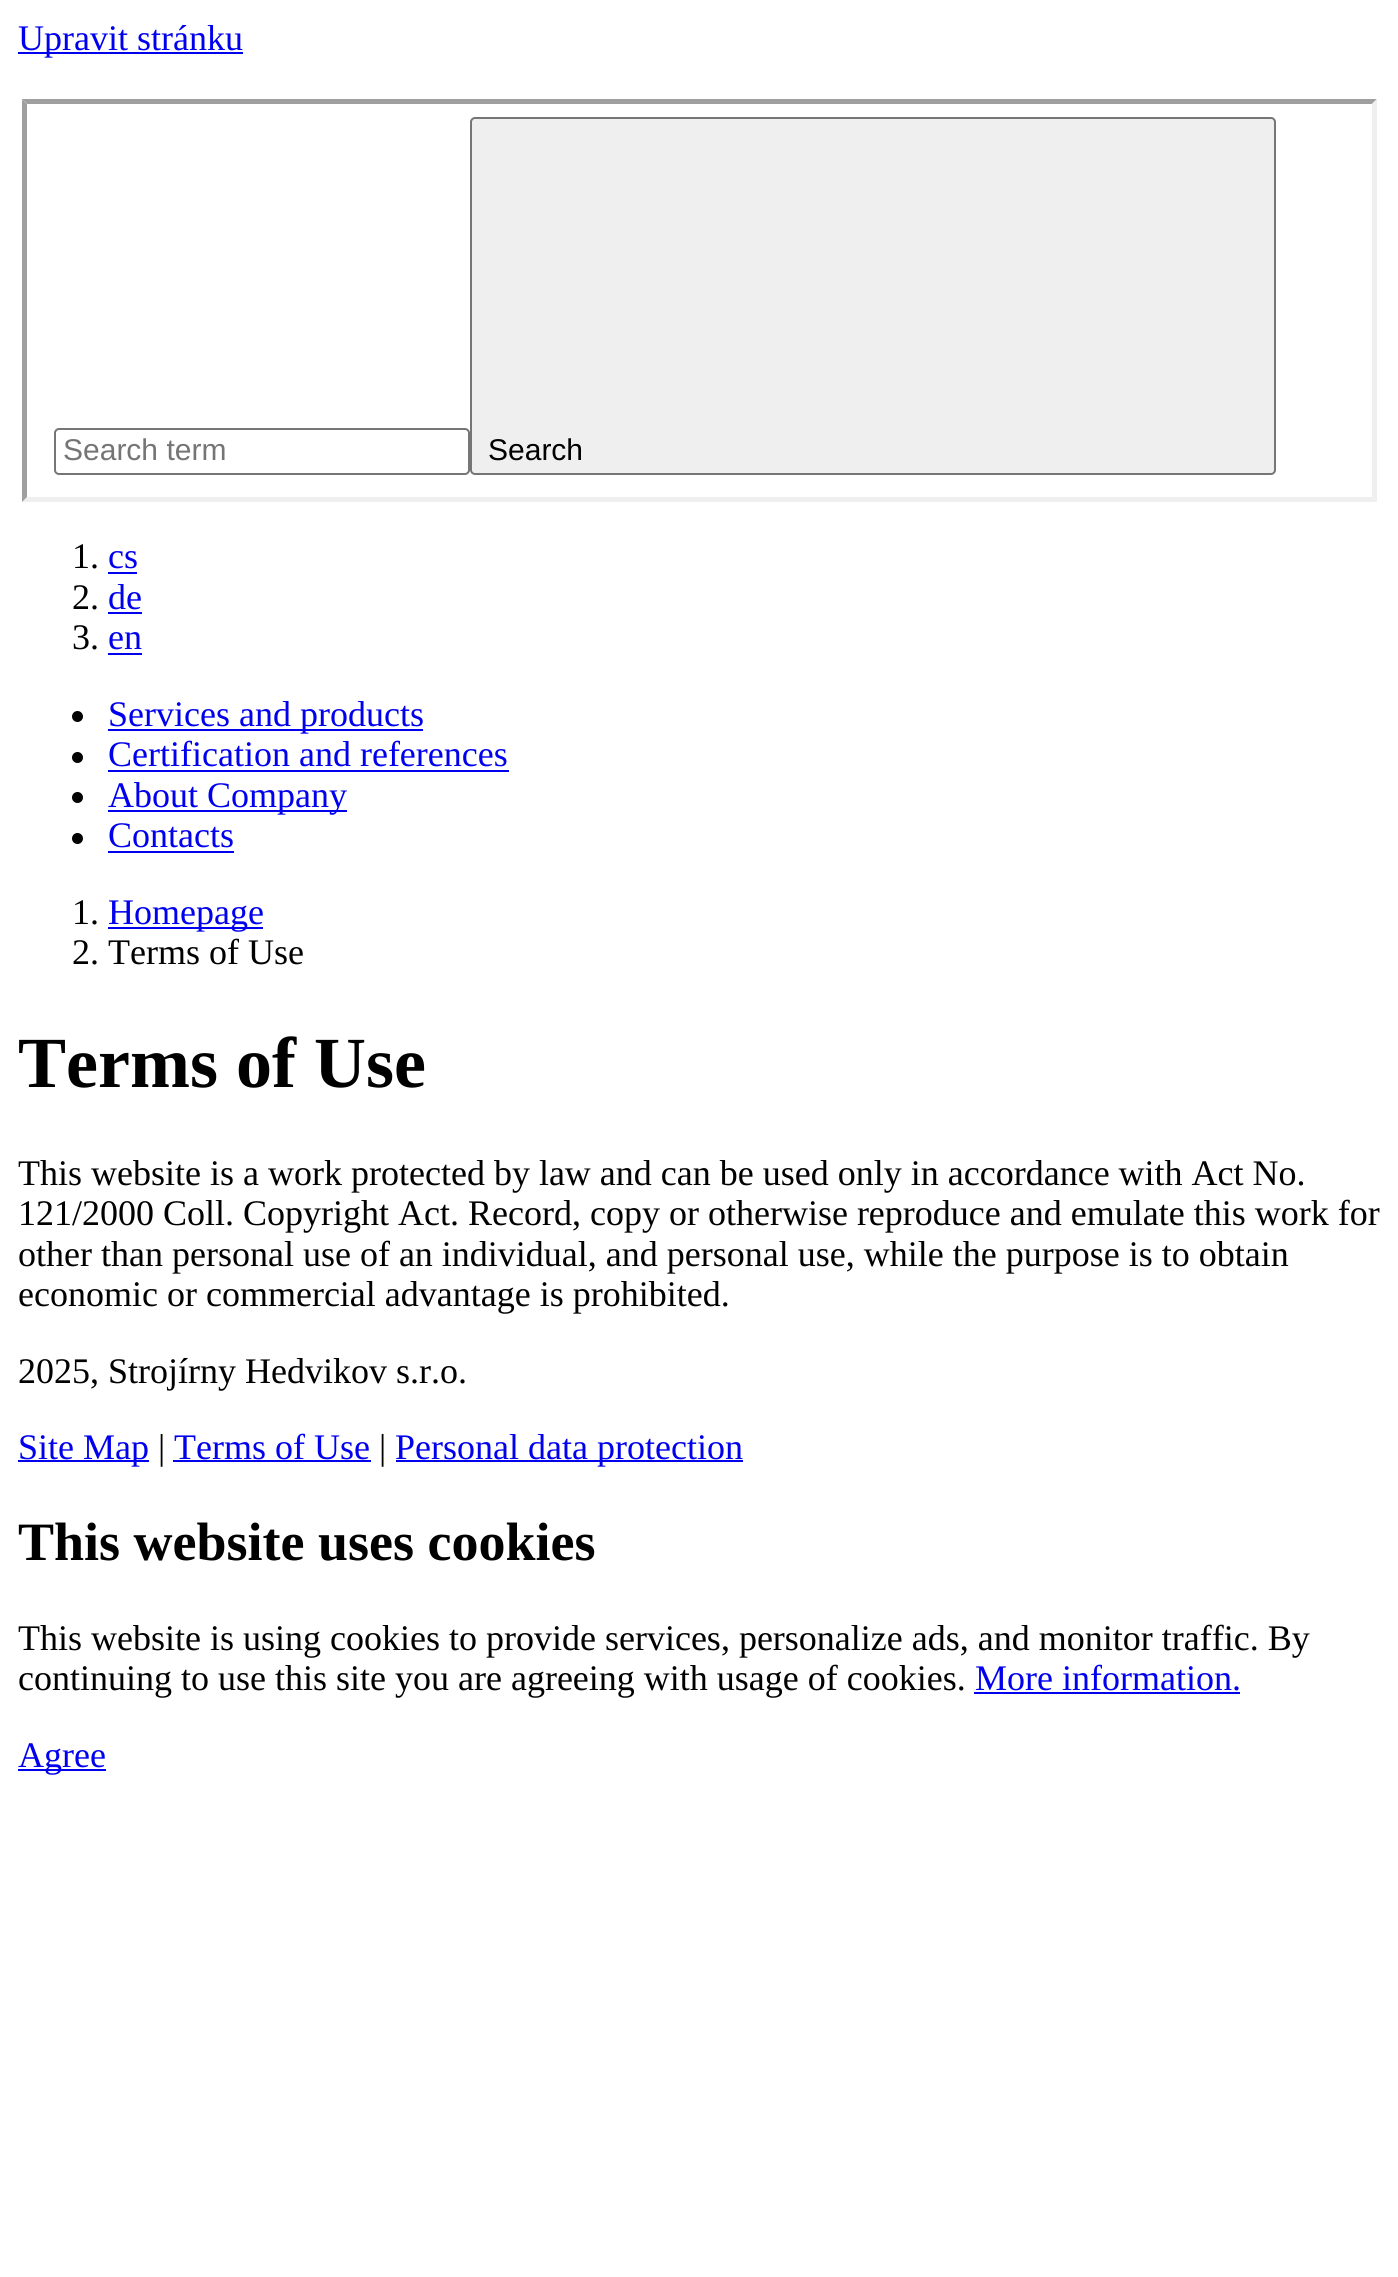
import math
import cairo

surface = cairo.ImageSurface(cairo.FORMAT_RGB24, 1398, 2277)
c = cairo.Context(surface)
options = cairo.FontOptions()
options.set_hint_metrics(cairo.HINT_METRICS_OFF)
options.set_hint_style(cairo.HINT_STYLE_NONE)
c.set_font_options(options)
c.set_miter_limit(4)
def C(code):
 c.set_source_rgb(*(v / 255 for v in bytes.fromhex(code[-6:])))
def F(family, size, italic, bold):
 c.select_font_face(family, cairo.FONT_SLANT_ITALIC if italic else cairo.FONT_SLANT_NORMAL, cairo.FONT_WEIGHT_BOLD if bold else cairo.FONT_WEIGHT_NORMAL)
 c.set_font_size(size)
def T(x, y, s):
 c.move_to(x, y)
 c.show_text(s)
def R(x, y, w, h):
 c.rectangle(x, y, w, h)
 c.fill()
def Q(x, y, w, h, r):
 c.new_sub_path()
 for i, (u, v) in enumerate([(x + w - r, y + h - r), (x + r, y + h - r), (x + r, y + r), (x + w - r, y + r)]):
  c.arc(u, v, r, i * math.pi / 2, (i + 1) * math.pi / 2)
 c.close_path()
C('ffffff')
c.paint()
C('0000ee')
R(18,52,225,2)
F('Liberation Serif',36,0,0)
T(18,50,'Upravit stránku')
C('9f9f9f')
c.new_path()
c.move_to(22,99)
c.line_to(1377,99)
c.line_to(1372,104)
c.line_to(27,104)
c.close_path()
c.fill()
C('efefef')
c.new_path()
c.move_to(1377,99)
c.line_to(1377,502)
c.line_to(1372,497)
c.line_to(1372,104)
c.close_path()
c.fill()
c.new_path()
c.move_to(1377,502)
c.line_to(22,502)
c.line_to(27,497)
c.line_to(1372,497)
c.close_path()
c.fill()
C('9f9f9f')
c.new_path()
c.move_to(22,502)
c.line_to(22,99)
c.line_to(27,104)
c.line_to(27,497)
c.close_path()
c.fill()
Q(55,429,414,45,4)
C('767676')
c.stroke()
F('Liberation Sans',30,0,0)
C('757575')
T(63,460,'Search term')
C('efefef')
Q(471,118,804,356,4)
c.fill_preserve()
C('767676')
c.stroke()
C('000000')
T(488,460,'Search')
F('Liberation Serif',36,0,0)
T(72,568,'1.')
C('0000ee')
T(108,568,'cs')
R(108,572,29,2)
C('000000')
T(72,609,'2.')
C('0000ee')
T(108,609,'de')
R(108,612,34,2)
C('000000')
T(72,649,'3.')
C('0000ee')
T(108,649,'en')
R(108,653,34,2)
C('000000')
c.new_path()
c.arc(77.5,716.5,5.5,0,2 * math.pi)
c.fill()
C('0000ee')
R(108,729,315,2)
T(108,726,'Services and products')
C('000000')
c.new_path()
c.arc(77.5,757.5,5.5,0,2 * math.pi)
c.fill()
C('0000ee')
T(108,766,'Certification and references')
R(108,770,401,2)
C('000000')
c.new_path()
c.arc(77.5,797.5,5.5,0,2 * math.pi)
c.fill()
C('0000ee')
R(108,810,239,2)
T(108,807,'About Company')
C('000000')
c.new_path()
c.arc(77.5,838.5,5.5,0,2 * math.pi)
c.fill()
C('0000ee')
T(108,847,'Contacts')
R(108,851,126,2)
C('000000')
T(72,924,'1.')
C('0000ee')
R(108,927,155,2)
T(108,924,'Homepage')
C('000000')
T(72,964,'2. Terms of Use')
F('Liberation Serif',72,0,1)
T(18,1087,'Terms of Use')
F('Liberation Serif',36,0,0)
T(18,1185,'This website is a work protected by law and can be used only in accordance with Act No.')
T(18,1225,'121/2000 Coll. Copyright Act. Record, copy or otherwise reproduce and emulate this work for')
T(18,1266,'other than personal use of an individual, and personal use, while the purpose is to obtain')
T(18,1306,'economic or commercial advantage is prohibited.')
T(18,1383,'2025, Strojírny Hedvikov s.r.o.')
C('0000ee')
R(18,1460,131,2)
T(18,1459,'Site Map')
C('000000')
T(158,1459,'|')
C('0000ee')
T(174,1459,'Terms of Use')
R(173,1460,198,2)
C('000000')
T(379,1459,'|')
C('0000ee')
R(396,1460,347,2)
T(395,1459,'Personal data protection')
F('Liberation Serif',54,0,1)
C('000000')
T(18,1560,'This website uses cookies')
F('Liberation Serif',36,0,0)
T(18,1650,'This website is using cookies to provide services, personalize ads, and monitor traffic. By')
T(18,1690,'continuing to use this site you are agreeing with usage of cookies.')
C('0000ee')
T(975,1690,'More information.')
R(974,1692,266,2)
R(18,1769,88,2)
T(18,1767,'Agree')
surface.write_to_png('o.png')
